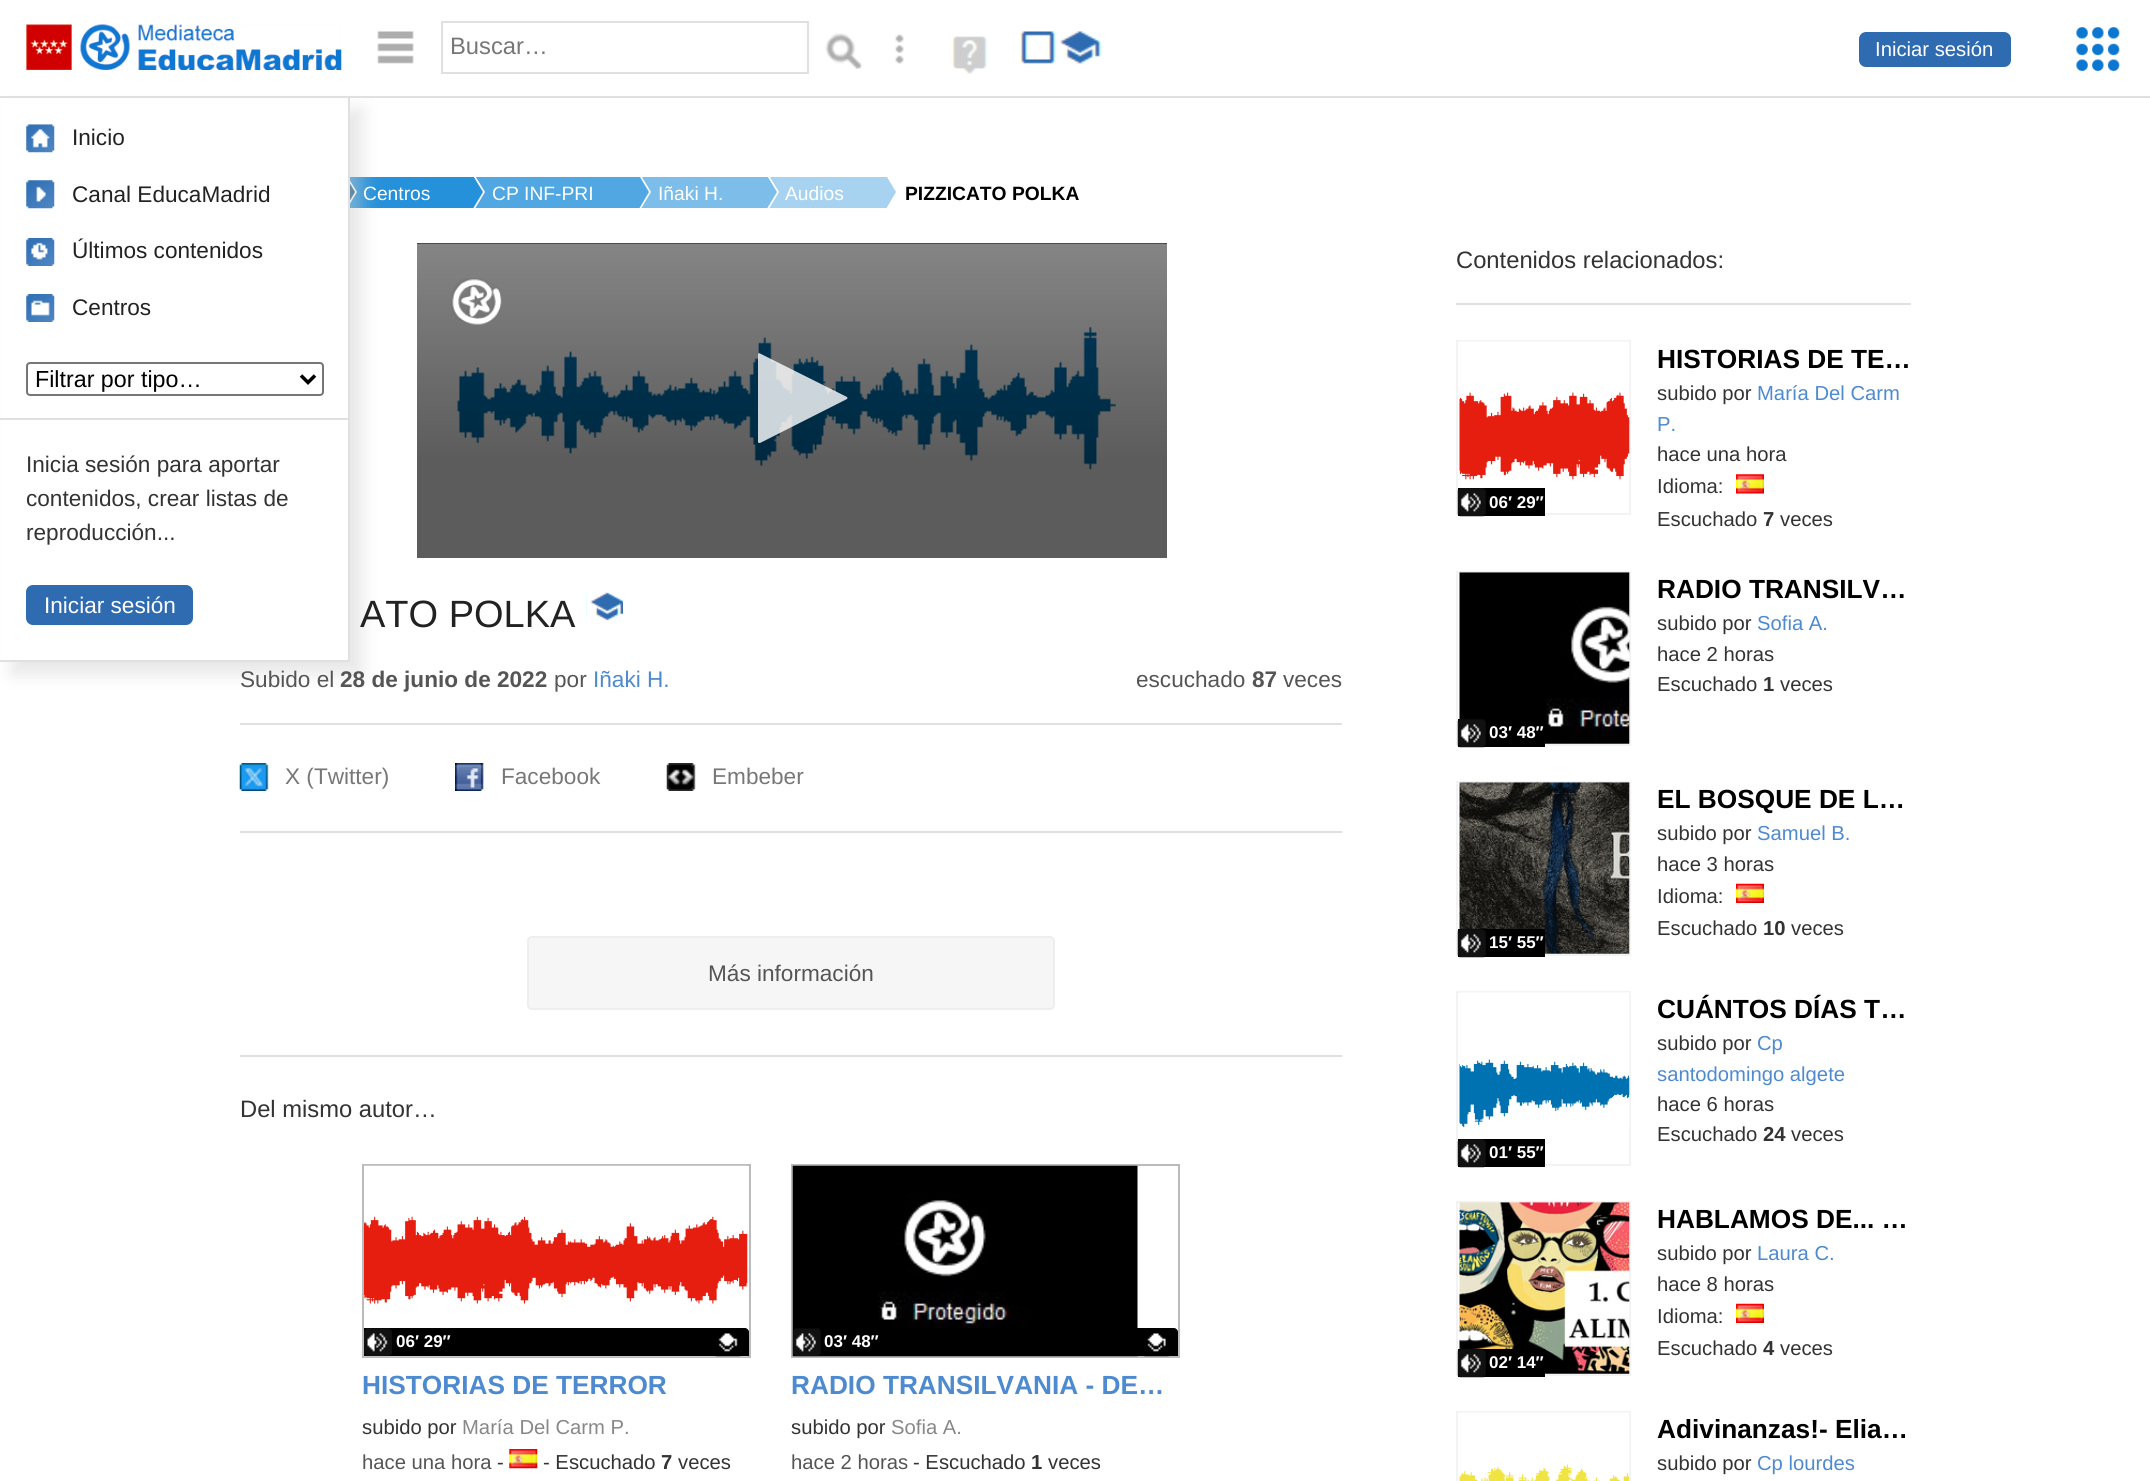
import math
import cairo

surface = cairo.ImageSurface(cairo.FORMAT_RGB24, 2150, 1481)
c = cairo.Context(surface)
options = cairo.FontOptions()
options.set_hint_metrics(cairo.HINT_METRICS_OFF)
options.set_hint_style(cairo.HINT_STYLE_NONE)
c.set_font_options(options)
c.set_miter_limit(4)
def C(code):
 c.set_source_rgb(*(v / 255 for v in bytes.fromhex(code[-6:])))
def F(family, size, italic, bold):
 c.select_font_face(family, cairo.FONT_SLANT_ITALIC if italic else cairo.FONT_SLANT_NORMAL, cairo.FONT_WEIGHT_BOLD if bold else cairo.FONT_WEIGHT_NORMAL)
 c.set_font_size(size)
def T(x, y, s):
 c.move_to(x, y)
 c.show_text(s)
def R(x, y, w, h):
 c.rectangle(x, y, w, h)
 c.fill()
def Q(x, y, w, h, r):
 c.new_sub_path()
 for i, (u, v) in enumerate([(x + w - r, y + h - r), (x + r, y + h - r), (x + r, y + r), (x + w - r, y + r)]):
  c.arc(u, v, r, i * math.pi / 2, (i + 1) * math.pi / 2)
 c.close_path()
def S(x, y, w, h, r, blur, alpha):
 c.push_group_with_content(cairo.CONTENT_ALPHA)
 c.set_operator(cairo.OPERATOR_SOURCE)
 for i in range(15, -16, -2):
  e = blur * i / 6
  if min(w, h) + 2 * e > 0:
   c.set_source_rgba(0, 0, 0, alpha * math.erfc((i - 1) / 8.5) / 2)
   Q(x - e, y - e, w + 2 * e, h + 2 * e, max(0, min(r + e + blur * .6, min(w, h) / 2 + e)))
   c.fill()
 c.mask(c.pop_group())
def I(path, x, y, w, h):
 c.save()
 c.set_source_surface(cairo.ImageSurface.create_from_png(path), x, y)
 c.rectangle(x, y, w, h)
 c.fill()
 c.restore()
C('ffffff')
c.paint()
C('2591da')
R(350,177,80,31)
C('ffffff')
c.new_path()
c.move_to(304,280)
c.line_to(304,105)
c.line_to(357,192)
c.close_path()
c.fill()
C('165783')
c.new_path()
c.move_to(303,280)
c.line_to(303,105)
c.line_to(355,192)
c.close_path()
c.fill()
C('cecece')
S(12,110,350,564,0,9,.5)
C('e0e0e0')
R(0,96,2150,2)
I('1.png',26,24,316,46)
I('2.png',377,31,37,33)
c.rectangle(442,22,366,51)
c.stroke()
F('Liberation Sans',23.75,0,0)
C('777777')
T(450,54,'Buscar…')
I('3.png',825,33,37,37)
I('4.png',895,34,9,30)
I('5.png',951,36,37,38)
I('6.png',1020,31,82,33)
C('2f6bb0')
Q(1859,32,152,35,7)
c.fill()
F('Liberation Sans',20.25,0,0)
C('ffffff')
T(1875,56,'Iniciar sesión')
R(1,99,347,561)
C('e0e0e0')
R(348,98,2,564)
R(0,660,350,2)
I('7.png',26,124,29,29)
F('Liberation Sans',22.6,0,0)
C('222222')
T(72,145,'Inicio')
I('8.png',26,180,29,29)
T(72,202,'Canal EducaMadrid')
I('9.png',26,238,29,28)
T(72,258,'Últimos contenidos')
I('10.png',26,294,29,28)
T(72,315,'Centros')
Q(27,363,296,32,3)
C('767676')
c.stroke()
c.new_path()
c.move_to(301,375.5)
c.line_to(308,382.5)
c.line_to(315,375.5)
C('000000')
c.set_line_width(3.5)
c.stroke()
F('Liberation Sans',23.25,0,0)
T(35,387,'Filtrar por tipo…')
C('e0e0e0')
R(0,418,348,2)
F('Liberation Sans',22.6,0,0)
C('333333')
T(26,472,'Inicia sesión para aportar')
T(26,506,'contenidos, crear listas de')
T(26,540,'reproducción...')
C('2f6bb0')
Q(26,585,167,40,7)
c.fill()
C('ffffff')
T(44,613,'Iniciar sesión')
F('Liberation Sans',19.25,0,0)
T(363,200,'Centros')
C('50a7e2')
R(475,177,122,31)
c.save()
c.rectangle(170,177,1741,31)
c.clip()
C('ffffff')
c.new_path()
c.move_to(432,280)
c.line_to(432,105)
c.line_to(485,192)
c.close_path()
c.fill()
C('2591da')
c.new_path()
c.move_to(430,280)
c.line_to(430,105)
c.line_to(483,192)
c.close_path()
c.fill()
c.restore()
C('7cbde9')
R(641,177,83,31)
c.save()
c.rectangle(170,177,1741,31)
c.clip()
C('ffffff')
c.new_path()
c.move_to(598,280)
c.line_to(598,105)
c.line_to(651,192)
c.close_path()
c.fill()
C('50a7e2')
c.new_path()
c.move_to(597,280)
c.line_to(597,105)
c.line_to(649,192)
c.close_path()
c.fill()
c.restore()
C('ffffff')
T(492,200,'CP INF-PRI')
C('a8d3f0')
R(769,177,75,31)
c.save()
c.rectangle(170,177,1741,31)
c.clip()
C('ffffff')
c.new_path()
c.move_to(726,280)
c.line_to(726,105)
c.line_to(779,192)
c.close_path()
c.fill()
C('7cbde9')
c.new_path()
c.move_to(724,280)
c.line_to(724,105)
c.line_to(777,192)
c.close_path()
c.fill()
c.restore()
C('ffffff')
T(658,200,'Iñaki H.')
T(785,200,'Audios')
c.save()
c.rectangle(170,177,1741,31)
c.clip()
C('a8d3f0')
c.new_path()
c.move_to(844,280)
c.line_to(844,105)
c.line_to(896,192)
c.close_path()
c.fill()
c.restore()
F('Liberation Sans',19.25,0,1)
C('000000')
T(905,200,'PIZZICATO POLKA')
R(417,243,750,1)
I('11.png',417,243,750,315)
gradient = cairo.LinearGradient(792,138,792,558)
gradient.add_color_stop_rgba(0,0,0,0,0)
gradient.add_color_stop_rgba(.77,0,0,0,.4)
gradient.add_color_stop_rgba(1,0,0,0,.4)
c.set_source(gradient)
R(417,243,750,315)
I('12.png',451,278,51,47)
c.set_source_rgba(1,1,1,0.8)
c.new_path()
c.move_to(760,443)
c.curve_to(759,443,758,443,758,442)
c.line_to(758,354)
c.line_to(759,353)
c.line_to(847,397)
c.curve_to(847,397,848,398,847,399)
c.close_path()
c.fill()
F('Liberation Sans',38,0,0)
C('222222')
T(360,627,'ATO POLKA')
I('13.png',586,592,37,29)
C('e0e0e0')
R(240,723,1102,2)
F('Liberation Sans',22.6,0,0)
C('555555')
T(240,687,'Subido el')
F('Liberation Sans',22.6,0,1)
T(340,687,'28 de junio de 2022')
F('Liberation Sans',22.6,0,0)
T(554,687,'por')
C('4e8ad0')
T(593,687,'Iñaki H.')
C('555555')
T(1136,687,'escuchado')
F('Liberation Sans',22.6,0,1)
T(1252,687,'87')
F('Liberation Sans',22.6,0,0)
T(1283,687,'veces')
C('e0e0e0')
R(240,831,1102,2)
I('14.png',239,763,30,28)
C('777777')
T(285,784,'X (Twitter)')
I('15.png',455,763,29,28)
T(501,784,'Facebook')
I('16.png',666,763,30,28)
T(712,784,'Embeber')
C('f6f6f6')
Q(528,937,526,72,4)
c.fill_preserve()
C('eeeeee')
c.set_line_width(2)
c.stroke()
C('555555')
T(708,981,'Más información')
C('e0e0e0')
R(240,1055,1102,2)
F('Liberation Sans',23.75,0,0)
C('333333')
T(240,1117,'Del mismo autor…')
c.rectangle(363,1165,387,192)
C('bbbbbb')
c.stroke()
I('19.png',364,1165,384,192)
C('000000')
c.new_path()
c.move_to(364,1328)
c.line_to(745,1328)
c.curve_to(747,1328,749,1330,749,1332)
c.line_to(749,1356)
c.line_to(364,1356)
c.close_path()
c.fill()
I('17.png',364,1328,28,29)
F('Liberation Sans',17,0,1)
C('ffffff')
T(396,1347,'06′ 29″')
F('Liberation Sans',20.25,0,0)
C('333333')
T(362,1434,'subido por')
C('888888')
T(462,1434,'María Del Carm P.')
C('555555')
T(362,1469,'hace una hora')
C('333333')
T(497,1469,'-')
I('18.png',509,1449,29,20)
T(543,1469,'- Escuchado')
F('Liberation Sans',20.25,0,1)
T(661,1469,'7')
F('Liberation Sans',20.25,0,0)
T(678,1469,'veces')
I('20.png',715,1333,26,24)
F('Liberation Sans',26.25,0,1)
C('4e8ad0')
T(362,1394,'HISTORIAS DE TERROR')
c.rectangle(792,1165,387,192)
C('bbbbbb')
c.stroke()
I('22.png',792,1165,346,192)
C('000000')
c.new_path()
c.move_to(793,1328)
c.line_to(1174,1328)
c.curve_to(1176,1328,1178,1330,1178,1332)
c.line_to(1178,1356)
c.line_to(793,1356)
c.close_path()
c.fill()
I('21.png',792,1328,29,29)
F('Liberation Sans',17,0,1)
C('ffffff')
T(824,1347,'03′ 48″')
F('Liberation Sans',20.25,0,0)
C('333333')
T(791,1434,'subido por')
C('888888')
T(891,1434,'Sofia A.')
C('555555')
T(791,1469,'hace 2 horas')
C('333333')
T(913,1469,'- Escuchado')
F('Liberation Sans',20.25,0,1)
T(1031,1469,'1')
F('Liberation Sans',20.25,0,0)
T(1048,1469,'veces')
I('23.png',1144,1333,26,24)
F('Liberation Sans',26.25,0,1)
C('4e8ad0')
T(791,1394,'RADIO TRANSILVANIA - DE…')
C('e0e0e0')
R(1456,303,455,2)
F('Liberation Sans',23.75,0,0)
C('333333')
T(1456,268,'Contenidos relacionados:')
c.rectangle(1457,341,173,173)
C('f3f3f3')
c.stroke()
I('24.png',1459,341,171,139)
F('Liberation Sans',26.25,0,1)
C('000000')
T(1657,368,'HISTORIAS DE TE…')
F('Liberation Sans',20.25,0,0)
C('333333')
T(1657,400,'subido por')
C('4e8ad0')
T(1757,400,'María Del Carm')
T(1657,431,'P.')
C('333333')
T(1657,461,'hace una hora')
T(1657,493,'Idioma:')
I('25.png',1736,474,28,20)
C('000000')
R(1458,488,87,28)
I('26.png',1457,488,29,29)
F('Liberation Sans',17,0,1)
C('ffffff')
T(1489,508,'06′ 29″')
F('Liberation Sans',20.25,0,0)
C('333333')
T(1657,526,'Escuchado')
F('Liberation Sans',20.25,0,1)
T(1763,526,'7')
F('Liberation Sans',20.25,0,0)
T(1780,526,'veces')
c.rectangle(1457,572,173,173)
C('f3f3f3')
c.stroke()
I('27.png',1459,572,171,172)
F('Liberation Sans',26.25,0,1)
C('000000')
T(1657,598,'RADIO TRANSILV…')
F('Liberation Sans',20.25,0,0)
C('333333')
T(1657,630,'subido por')
C('4e8ad0')
T(1757,630,'Sofia A.')
C('333333')
T(1657,661,'hace 2 horas')
T(1657,691,'Escuchado')
F('Liberation Sans',20.25,0,1)
T(1763,691,'1')
F('Liberation Sans',20.25,0,0)
T(1780,691,'veces')
C('000000')
R(1458,719,87,28)
I('26.png',1457,719,29,29)
F('Liberation Sans',17,0,1)
C('ffffff')
T(1489,738,'03′ 48″')
c.rectangle(1457,782,173,173)
C('f3f3f3')
c.stroke()
I('28.png',1459,782,171,172)
F('Liberation Sans',26.25,0,1)
C('000000')
T(1657,808,'EL BOSQUE DE L…')
F('Liberation Sans',20.25,0,0)
C('333333')
T(1657,840,'subido por')
C('4e8ad0')
T(1757,840,'Samuel B.')
C('333333')
T(1657,871,'hace 3 horas')
T(1657,903,'Idioma:')
I('29.png',1736,883,28,20)
T(1657,935,'Escuchado')
F('Liberation Sans',20.25,0,1)
T(1763,935,'10')
F('Liberation Sans',20.25,0,0)
T(1791,935,'veces')
C('000000')
R(1458,929,87,28)
I('26.png',1457,929,29,29)
F('Liberation Sans',17,0,1)
C('ffffff')
T(1489,948,'15′ 55″')
c.rectangle(1457,992,173,173)
C('f3f3f3')
c.stroke()
I('30.png',1459,992,171,136)
F('Liberation Sans',26.25,0,1)
C('000000')
T(1657,1018,'CUÁNTOS DÍAS T…')
F('Liberation Sans',20.25,0,0)
C('333333')
T(1657,1050,'subido por')
C('4e8ad0')
T(1757,1050,'Cp')
T(1657,1081,'santodomingo algete')
C('333333')
T(1657,1111,'hace 6 horas')
T(1657,1141,'Escuchado')
F('Liberation Sans',20.25,0,1)
T(1763,1141,'24')
F('Liberation Sans',20.25,0,0)
T(1791,1141,'veces')
C('000000')
R(1458,1139,87,28)
I('26.png',1457,1139,29,29)
F('Liberation Sans',17,0,1)
C('ffffff')
T(1489,1158,'01′ 55″')
c.rectangle(1457,1202,173,173)
C('f3f3f3')
c.stroke()
I('31.png',1459,1202,171,172)
F('Liberation Sans',26.25,0,1)
C('000000')
T(1657,1228,'HABLAMOS DE... …')
F('Liberation Sans',20.25,0,0)
C('333333')
T(1657,1260,'subido por')
C('4e8ad0')
T(1757,1260,'Laura C.')
C('333333')
T(1657,1291,'hace 8 horas')
T(1657,1323,'Idioma:')
I('29.png',1736,1303,28,20)
T(1657,1355,'Escuchado')
F('Liberation Sans',20.25,0,1)
T(1763,1355,'4')
F('Liberation Sans',20.25,0,0)
T(1780,1355,'veces')
C('000000')
R(1458,1349,87,28)
I('26.png',1457,1349,29,29)
F('Liberation Sans',17,0,1)
C('ffffff')
T(1489,1368,'02′ 14″')
c.rectangle(1457,1412,173,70)
C('f3f3f3')
c.stroke()
I('32.png',1459,1412,171,69)
F('Liberation Sans',26.25,0,1)
C('000000')
T(1657,1438,'Adivinanzas!- Elia…')
F('Liberation Sans',20.25,0,0)
C('333333')
T(1657,1470,'subido por')
C('4e8ad0')
T(1757,1470,'Cp lourdes')
I('33.png',2076,27,44,44)
surface.write_to_png('o.png')
